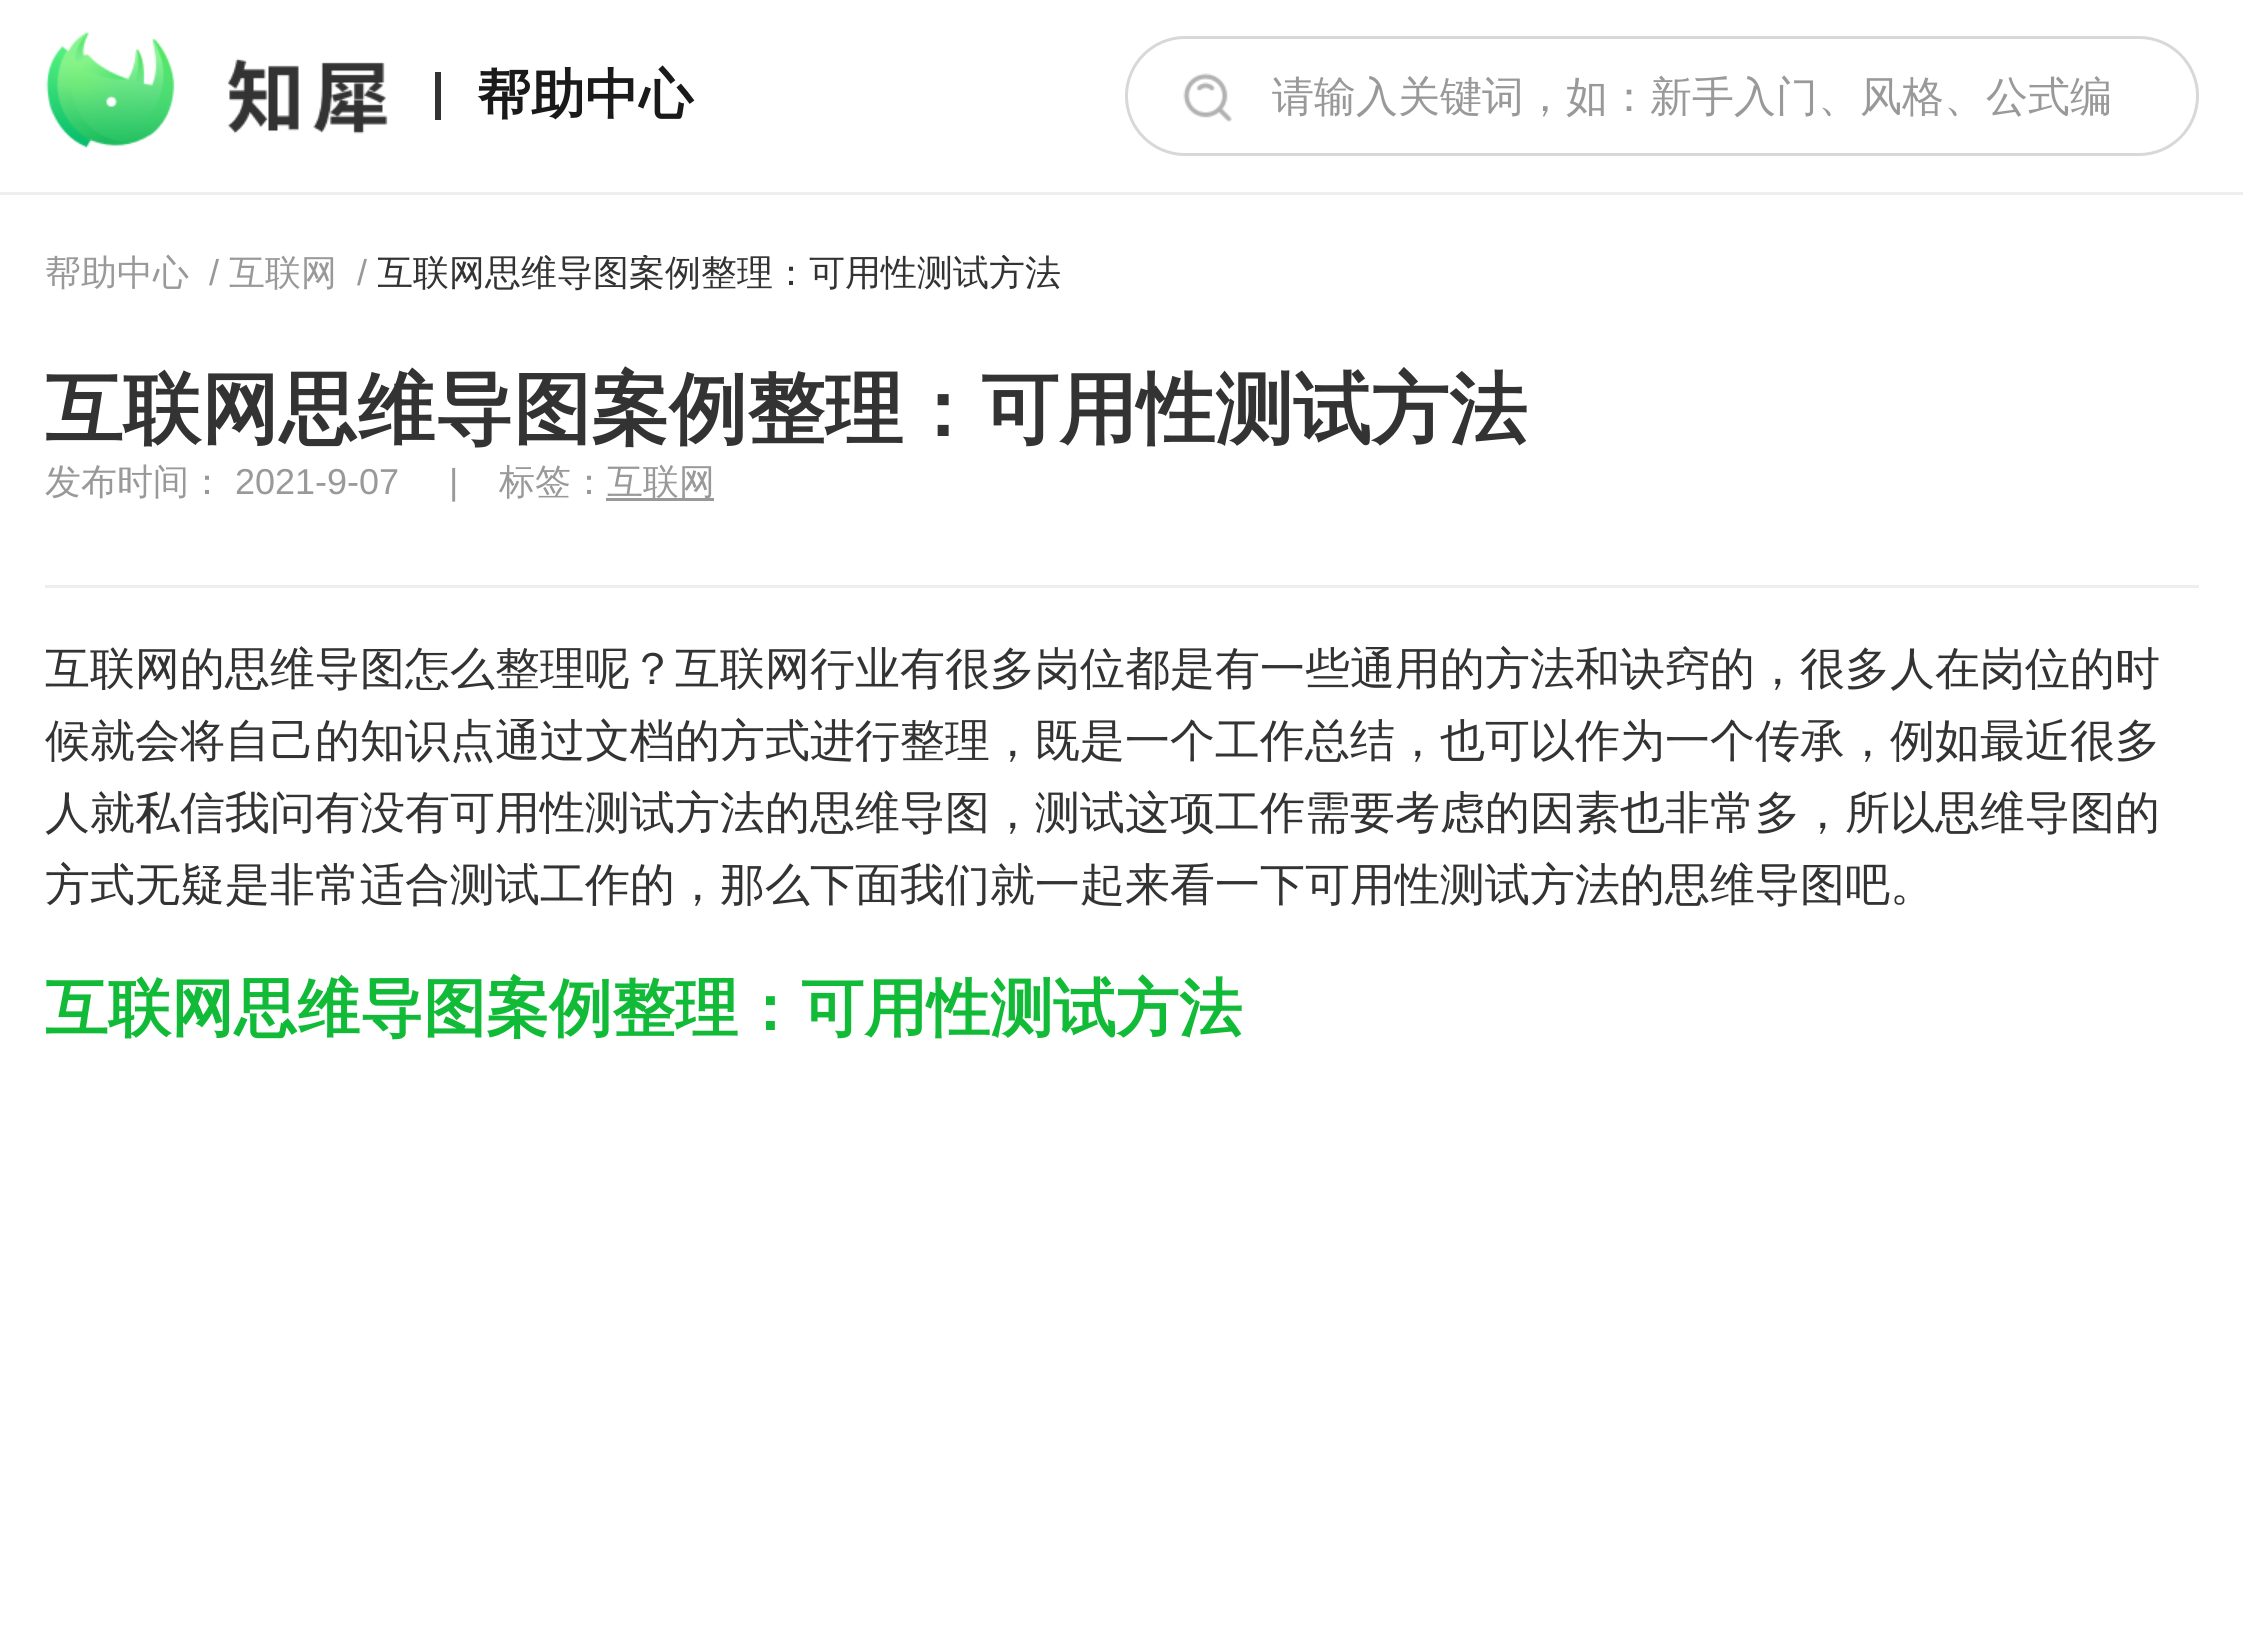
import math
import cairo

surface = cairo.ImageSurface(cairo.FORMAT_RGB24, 2243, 1644)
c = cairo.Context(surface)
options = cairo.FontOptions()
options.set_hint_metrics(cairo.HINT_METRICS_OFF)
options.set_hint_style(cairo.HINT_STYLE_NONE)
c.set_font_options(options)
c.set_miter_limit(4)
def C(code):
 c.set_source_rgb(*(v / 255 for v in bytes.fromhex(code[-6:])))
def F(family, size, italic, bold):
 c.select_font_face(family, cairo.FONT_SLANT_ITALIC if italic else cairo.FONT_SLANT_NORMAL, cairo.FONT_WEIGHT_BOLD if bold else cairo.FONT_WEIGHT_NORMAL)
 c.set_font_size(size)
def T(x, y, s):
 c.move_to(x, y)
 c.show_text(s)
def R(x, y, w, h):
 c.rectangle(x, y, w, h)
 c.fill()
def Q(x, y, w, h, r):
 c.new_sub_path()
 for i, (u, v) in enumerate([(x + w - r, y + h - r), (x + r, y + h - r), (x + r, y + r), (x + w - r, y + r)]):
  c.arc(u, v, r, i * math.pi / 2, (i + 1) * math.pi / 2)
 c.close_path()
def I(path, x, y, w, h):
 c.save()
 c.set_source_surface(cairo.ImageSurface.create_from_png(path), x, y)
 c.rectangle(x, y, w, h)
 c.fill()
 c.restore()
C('ffffff')
c.paint()
I('1.png',46,31,342,117)
C('333333')
R(435,72,6,48)
F('WenQuanYi Zen Hei',54,0,1)
C('1a1a1a')
T(477,113,'帮助中心')
Q(1126.5,37.5,1071,117,58.5)
C('d8d8d8')
c.set_line_width(3)
c.stroke()
I('2.png',1183,73,49,49)
F('WenQuanYi Zen Hei Medium',42,0,0)
C('999999')
T(1272,111,'请输入关键词，如：新手入门、风格、公式编')
C('eeeeee')
R(0,192,2243,3)
F('WenQuanYi Zen Hei Medium',36,0,0)
C('999999')
T(45,285,'帮助中心')
F('Liberation Sans',36,0,0)
T(209,285,'/')
F('WenQuanYi Zen Hei Medium',36,0,0)
T(229,285,'互联网')
F('Liberation Sans',36,0,0)
T(357,285,'/')
c.save()
c.rectangle(378,255,684,42)
c.clip()
F('WenQuanYi Zen Hei Medium',36,0,0)
C('333333')
T(377,285,'互联网思维导图案例整理：可用性测试方法')
c.restore()
F('WenQuanYi Zen Hei',78,0,1)
C('333333')
T(45,436,'互联网思维导图案例整理：可用性测试方法')
C('eeeeee')
R(45,585,2154,3)
F('WenQuanYi Zen Hei Medium',36,0,0)
C('999999')
T(45,494,'发布时间：')
F('Liberation Sans',36,0,0)
T(235,494,'2021-9-07')
T(449,494,'|')
F('WenQuanYi Zen Hei Medium',36,0,0)
T(499,494,'标签：')
R(606,498,108,3)
T(607,494,'互联网')
F('WenQuanYi Zen Hei Medium',45,0,0)
C('333333')
T(45,684,'互联网的思维导图怎么整理呢？互联网行业有很多岗位都是有一些通用的方法和诀窍的，很多人在岗位的时')
T(45,756,'候就会将自己的知识点通过文档的方式进行整理，既是一个工作总结，也可以作为一个传承，例如最近很多')
T(45,828,'人就私信我问有没有可用性测试方法的思维导图，测试这项工作需要考虑的因素也非常多，所以思维导图的')
T(45,900,'方式无疑是非常适合测试工作的，那么下面我们就一起来看一下可用性测试方法的思维导图吧。')
F('WenQuanYi Zen Hei',63,0,1)
C('12bb37')
T(45,1030,'互联网思维导图案例整理：可用性测试方法')
surface.write_to_png('o.png')
